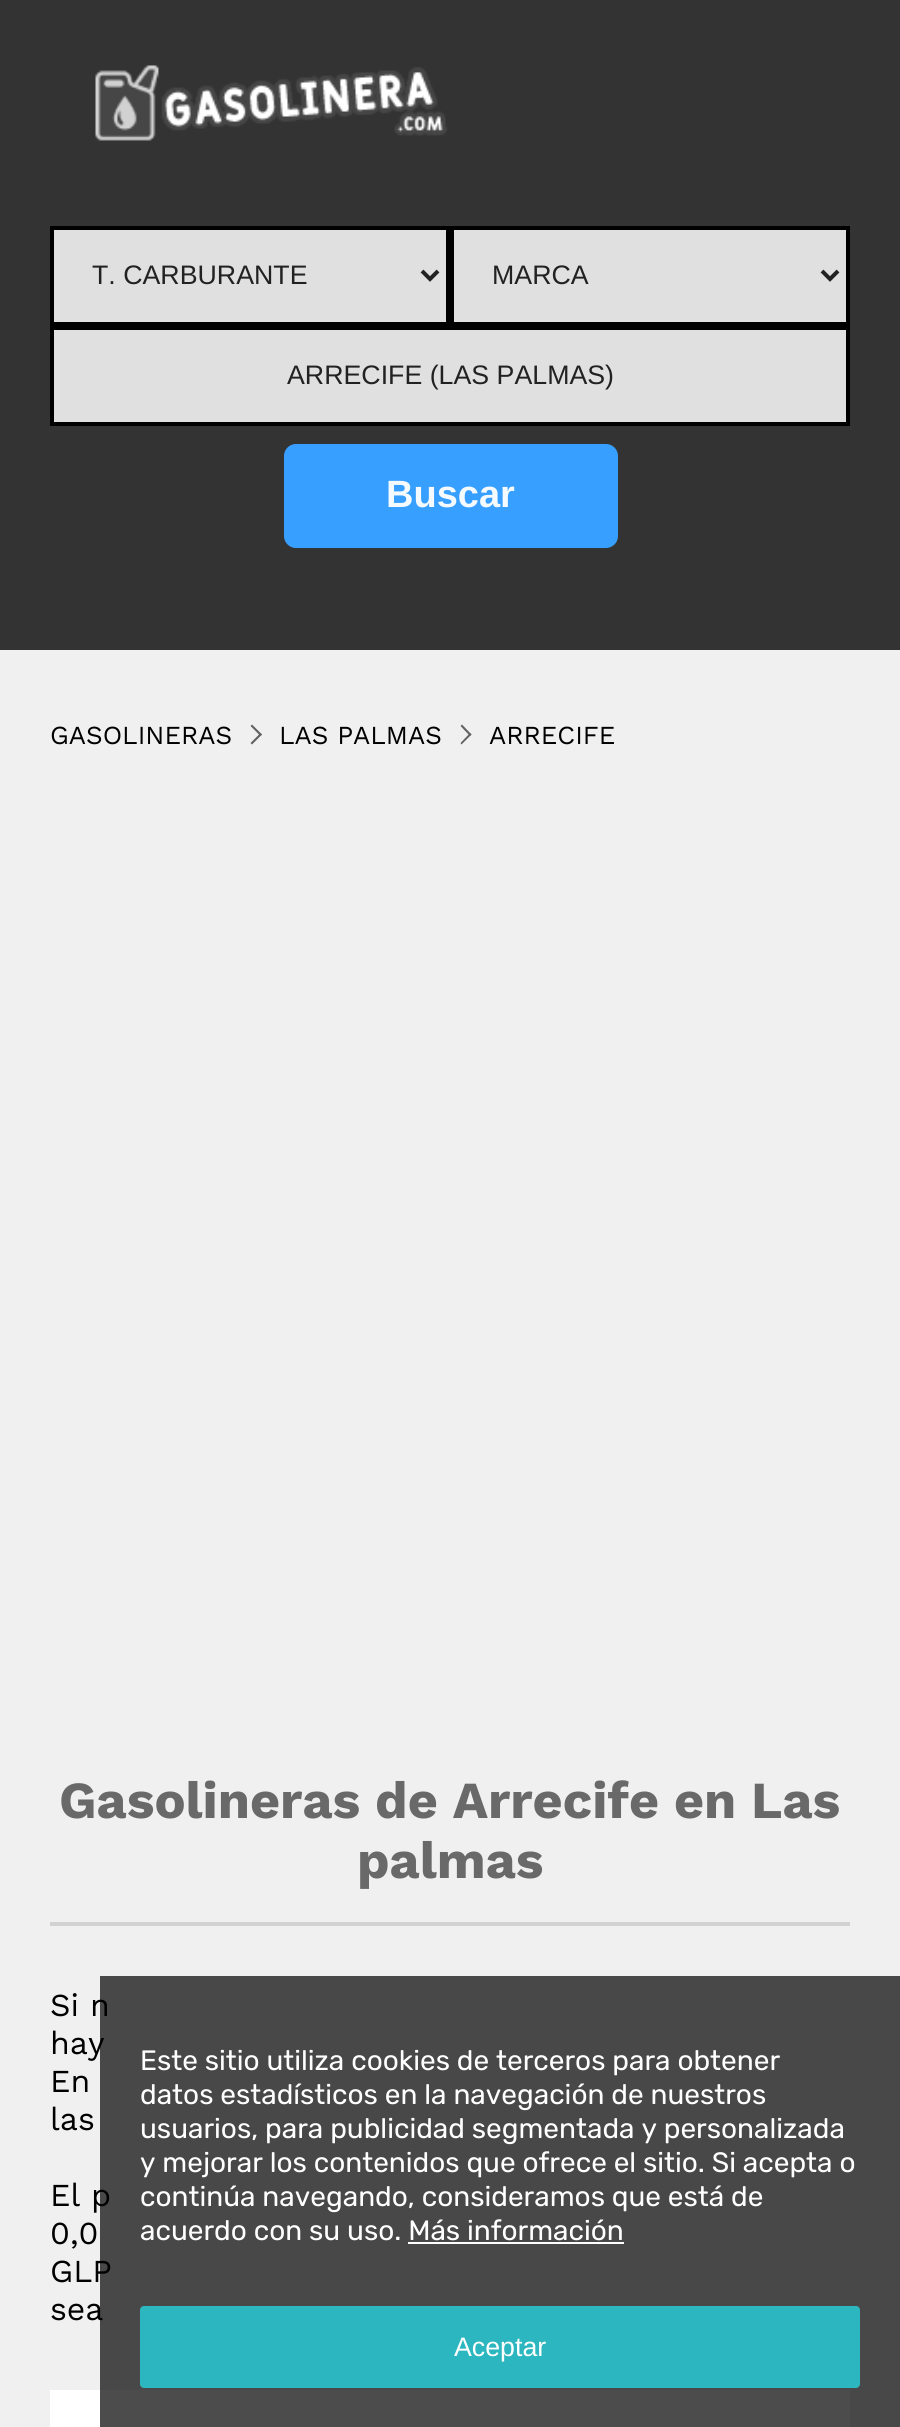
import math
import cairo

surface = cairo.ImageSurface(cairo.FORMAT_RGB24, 900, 2427)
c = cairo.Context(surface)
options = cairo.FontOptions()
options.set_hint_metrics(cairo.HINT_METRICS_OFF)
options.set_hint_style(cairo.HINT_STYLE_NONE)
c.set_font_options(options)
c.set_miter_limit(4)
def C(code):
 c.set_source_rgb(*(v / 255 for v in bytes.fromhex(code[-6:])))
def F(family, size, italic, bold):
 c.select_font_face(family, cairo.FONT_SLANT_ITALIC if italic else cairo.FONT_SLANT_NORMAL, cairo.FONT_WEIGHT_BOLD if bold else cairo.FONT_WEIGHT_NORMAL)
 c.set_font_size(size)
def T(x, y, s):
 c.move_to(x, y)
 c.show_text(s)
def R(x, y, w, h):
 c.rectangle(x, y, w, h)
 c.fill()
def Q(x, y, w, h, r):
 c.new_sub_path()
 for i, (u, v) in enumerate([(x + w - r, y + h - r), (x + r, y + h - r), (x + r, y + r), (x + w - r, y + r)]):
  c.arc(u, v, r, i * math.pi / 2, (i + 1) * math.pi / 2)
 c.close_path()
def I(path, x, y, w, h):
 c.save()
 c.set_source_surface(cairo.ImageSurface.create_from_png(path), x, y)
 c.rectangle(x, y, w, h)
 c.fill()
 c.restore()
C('f0f0f0')
c.paint()
C('333333')
R(0,0,900,650)
I('1.png',95,65,353,76)
C('e0e0e0')
c.rectangle(52,228,396,96)
c.fill_preserve()
C('000000')
c.set_line_width(4)
c.stroke()
c.new_path()
c.move_to(422,271)
c.line_to(430,279)
c.line_to(438,271)
C('222222')
c.stroke()
F('Liberation Sans',26.75,0,0)
T(92,284,'T. CARBURANTE')
C('e0e0e0')
c.rectangle(452,228,396,96)
c.fill_preserve()
C('000000')
c.stroke()
c.new_path()
c.move_to(822,271)
c.line_to(830,279)
c.line_to(838,271)
C('222222')
c.stroke()
T(492,284,'MARCA')
C('e0e0e0')
c.rectangle(52,328,796,96)
c.fill_preserve()
C('000000')
c.stroke()
C('222222')
T(287,384,'ARRECIFE (LAS PALMAS)')
C('379fff')
Q(280,440,342,112,16)
c.fill_preserve()
C('333333')
c.set_line_width(8)
c.stroke()
F('Liberation Sans',38,0,1)
C('f5faff')
T(386,507,'Buscar')
F('Work Sans',26,0,0)
C('000000')
T(50,744,'GASOLINERAS')
C('626262')
c.new_path()
c.move_to(250.5,726)
c.line_to(252,724.5)
c.line_to(262,734.5)
c.line_to(260.5,736)
c.close_path()
c.fill()
c.new_path()
c.move_to(250.5,743)
c.line_to(260.5,733)
c.line_to(262,734.5)
c.line_to(252,744.5)
c.close_path()
c.fill()
C('000000')
T(279,744,'LAS PALMAS')
C('626262')
c.new_path()
c.move_to(460.5,726)
c.line_to(462,724.5)
c.line_to(471.5,734.5)
c.line_to(470,736)
c.close_path()
c.fill()
c.new_path()
c.move_to(460.5,743)
c.line_to(470,733)
c.line_to(471.5,734.5)
c.line_to(461.5,744.5)
c.close_path()
c.fill()
C('000000')
T(489,744,'ARRECIFE')
C('d2d2d2')
R(50,1922,800,4)
F('Work Sans',52,0,1)
C('696969')
T(59,1818,'Gasolineras de Arrecife en Las')
T(357,1878,'palmas')
F('Work Sans',32,0,0)
C('000000')
T(50,2016,'Si n')
T(50,2054,'hay')
T(50,2092,'En')
T(50,2130,'las')
T(50,2206,'El p')
T(50,2244,'0,0')
T(50,2282,'GLP')
T(50,2320,'sea')
C('ffffff')
R(50,2390,800,37)
c.set_source_rgba(0,0,0,0.7)
R(100,1976,800,451)
F('Rubik',28,0,0)
C('ffffff')
T(140,2070,'Este sitio utiliza cookies de terceros para obtener')
T(140,2104,'datos estadísticos en la navegación de nuestros')
T(140,2138,'usuarios, para publicidad segmentada y personalizada')
T(140,2172,'y mejorar los contenidos que ofrece el sitio. Si acepta o')
T(140,2206,'continúa navegando, consideramos que está de')
T(140,2240,'acuerdo con su uso. Más información')
R(408,2242,216,2)
C('2cb6bf')
Q(140,2306,720,82,4)
c.fill()
F('Liberation Sans',26.75,0,0)
C('ffffff')
T(454,2356,'Aceptar')
surface.write_to_png('o.png')
